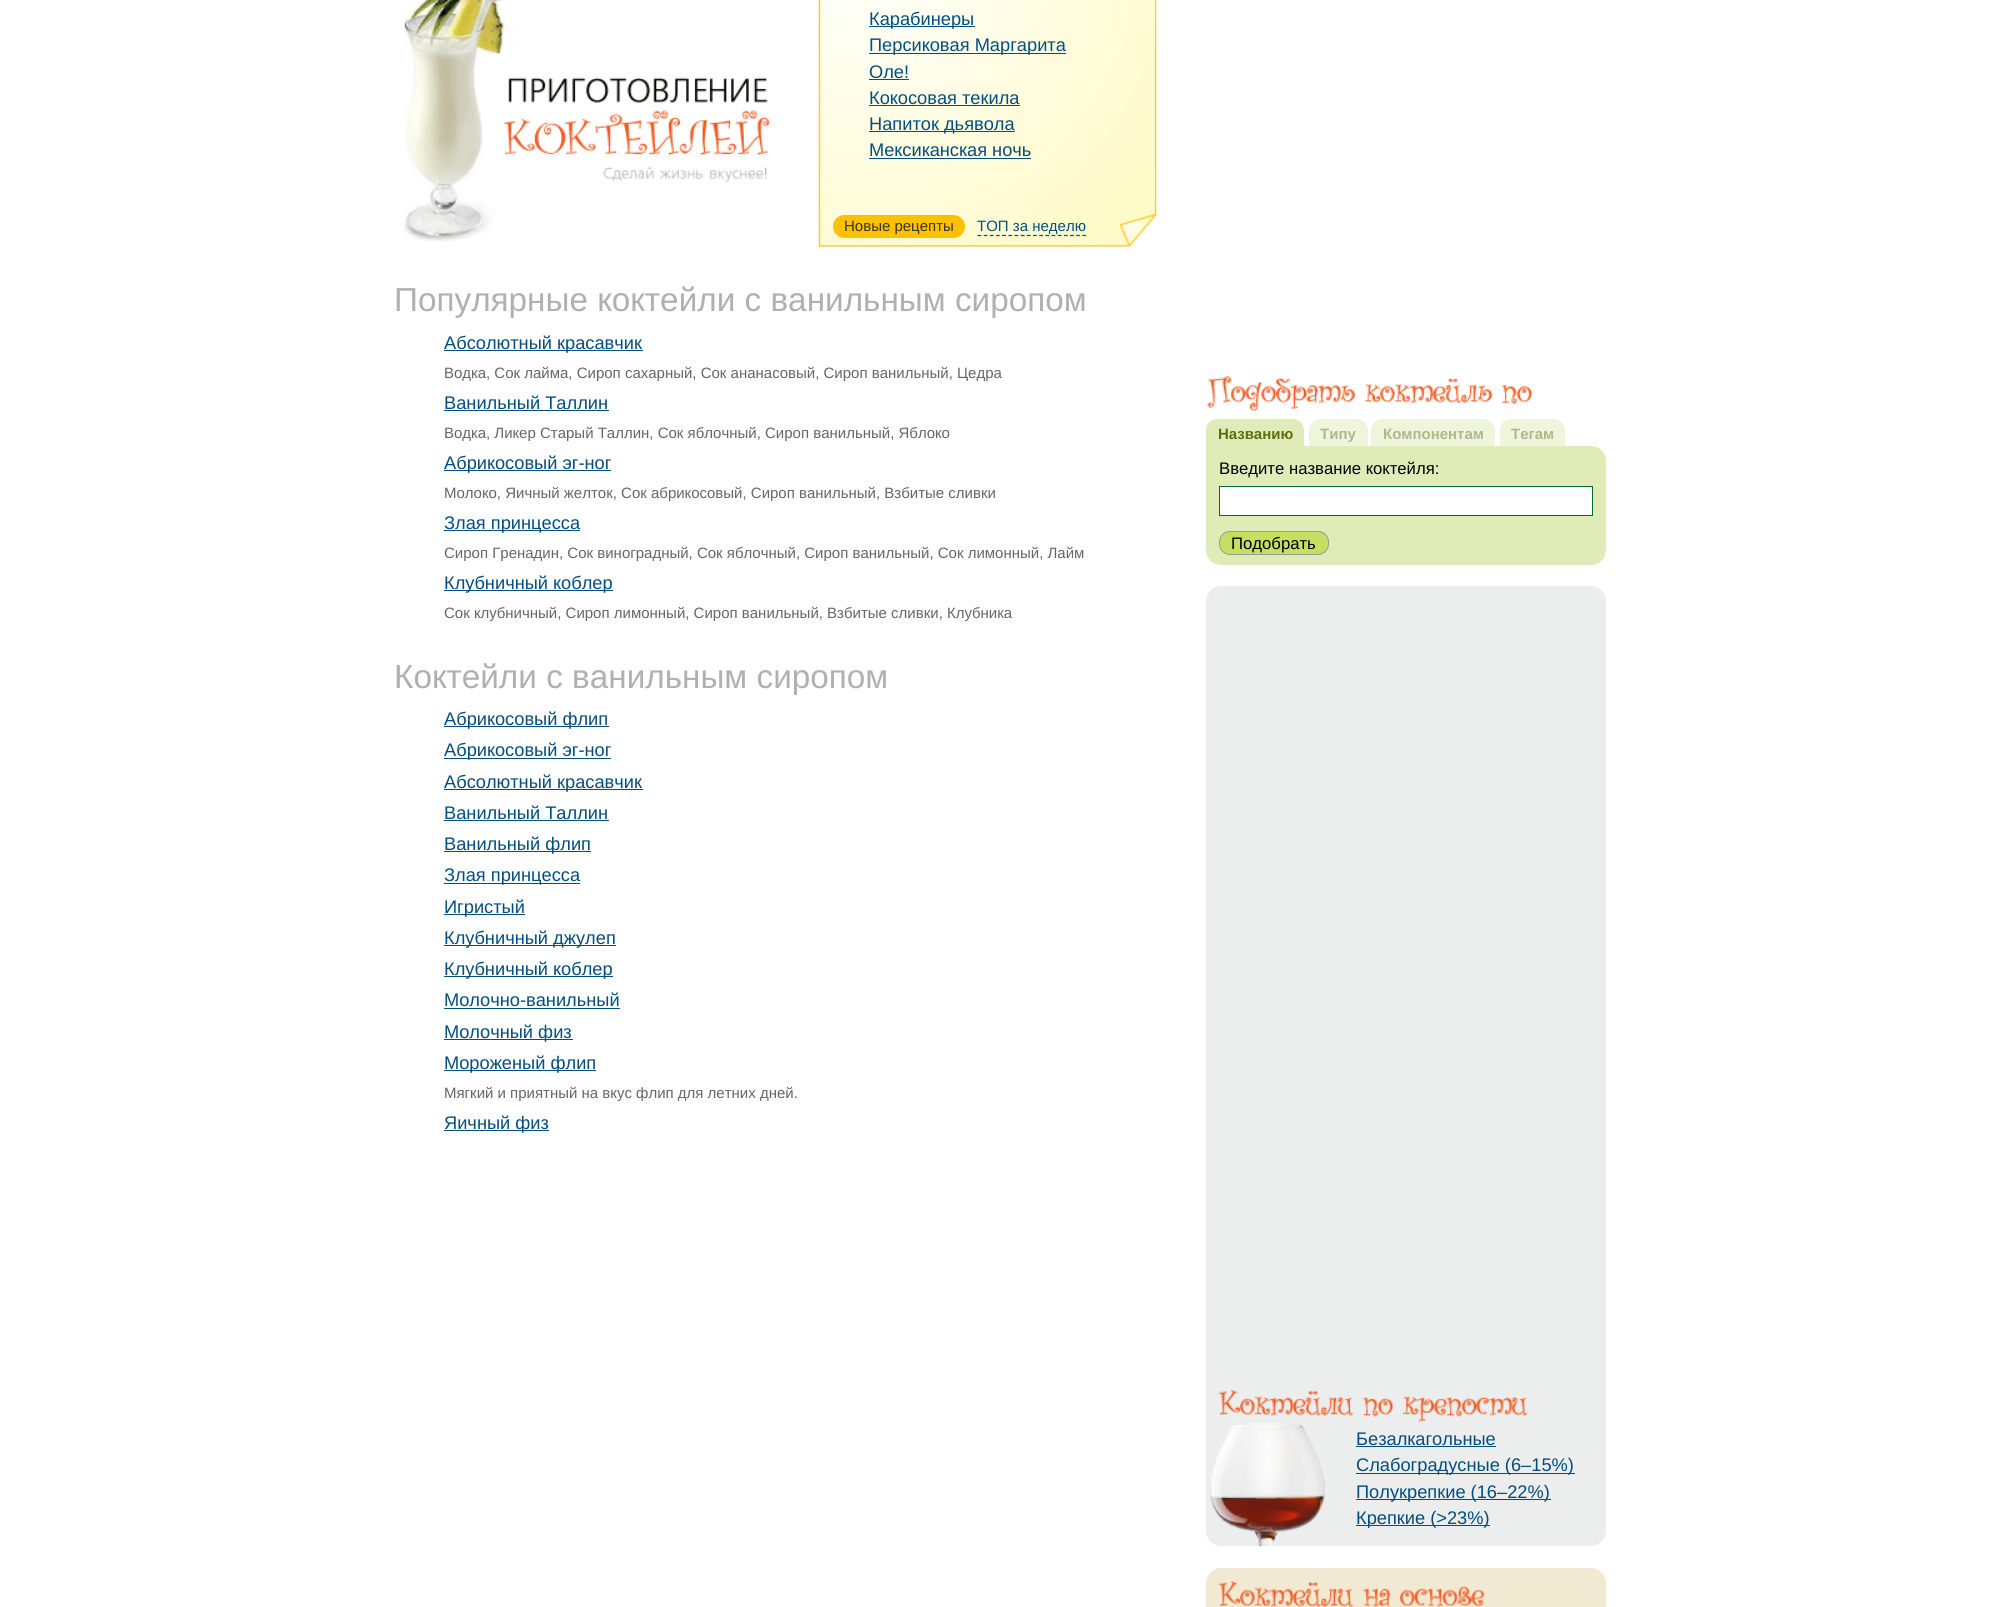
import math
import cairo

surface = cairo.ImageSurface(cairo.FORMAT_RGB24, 1999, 1607)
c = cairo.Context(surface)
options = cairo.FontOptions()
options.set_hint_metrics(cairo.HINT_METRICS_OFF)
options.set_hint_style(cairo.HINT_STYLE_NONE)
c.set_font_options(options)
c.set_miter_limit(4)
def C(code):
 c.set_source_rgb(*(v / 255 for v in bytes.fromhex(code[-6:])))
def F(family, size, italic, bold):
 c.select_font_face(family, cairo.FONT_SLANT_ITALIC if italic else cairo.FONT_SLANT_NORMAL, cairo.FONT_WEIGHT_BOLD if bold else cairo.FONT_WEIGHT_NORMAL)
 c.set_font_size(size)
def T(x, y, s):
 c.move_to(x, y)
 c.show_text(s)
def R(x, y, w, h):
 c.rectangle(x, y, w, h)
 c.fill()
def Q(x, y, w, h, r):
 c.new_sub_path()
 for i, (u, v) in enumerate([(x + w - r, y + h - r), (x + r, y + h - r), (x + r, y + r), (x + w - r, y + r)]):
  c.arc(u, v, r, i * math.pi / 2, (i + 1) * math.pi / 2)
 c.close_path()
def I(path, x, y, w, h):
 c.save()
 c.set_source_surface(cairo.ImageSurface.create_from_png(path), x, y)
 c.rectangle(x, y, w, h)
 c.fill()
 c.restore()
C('ffffff')
c.paint()
I('1.png',403,0,368,242)
I('2.png',818,0,339,247)
C('014e7f')
R(869,26,106,1)
F('Liberation Sans',18.25,0,0)
T(869,25,'Карабинеры')
R(869,53,197,1)
T(869,51,'Персиковая Маргарита')
T(869,78,'Оле!')
R(869,79,40,1)
T(869,104,'Кокосовая текила')
R(869,105,151,1)
R(869,131,146,1)
T(869,130,'Напиток дьявола')
T(869,156,'Мексиканская ночь')
R(869,158,162,1)
C('ffc000')
Q(833,215,132,23,11.5)
c.fill()
F('Liberation Sans',15,0,0)
C('333333')
T(844,231,'Новые рецепты')
C('014e7f')
T(977,231,'ТОП за неделю')
c.new_path()
c.move_to(977.5,235.5)
c.line_to(1086,235.5)
c.set_line_width(1.2)
c.set_dash([3.75,2.42])
c.stroke()
F('Liberation Sans',33.3,0,0)
C('b0b0b0')
T(394,311,'Популярные коктейли с ванильным сиропом')
C('014e7f')
R(444,350,199,1)
F('Liberation Sans',18.25,0,0)
T(444,349,'Абсолютный красавчик')
F('Liberation Sans',15,0,0)
C('666666')
T(444,378,'Водка, Сок лайма, Сироп сахарный, Сок ананасовый, Сироп ванильный, Цедра')
F('Liberation Sans',18.25,0,0)
C('014e7f')
T(444,409,'Ванильный Таллин')
R(444,410,165,1)
F('Liberation Sans',15,0,0)
C('666666')
T(444,438,'Водка, Ликер Старый Таллин, Сок яблочный, Сироп ванильный, Яблоко')
C('014e7f')
R(444,470,167,1)
F('Liberation Sans',18.25,0,0)
T(444,469,'Абрикосовый эг-ног')
F('Liberation Sans',15,0,0)
C('666666')
T(444,498,'Молоко, Яичный желток, Сок абрикосовый, Сироп ванильный, Взбитые сливки')
C('014e7f')
R(444,530,136,1)
F('Liberation Sans',18.25,0,0)
T(444,529,'Злая принцесса')
F('Liberation Sans',15,0,0)
C('666666')
T(444,558,'Сироп Гренадин, Сок виноградный, Сок яблочный, Сироп ванильный, Сок лимонный, Лайм')
C('014e7f')
R(444,590,169,1)
F('Liberation Sans',18.25,0,0)
T(444,589,'Клубничный коблер')
F('Liberation Sans',15,0,0)
C('666666')
T(444,618,'Сок клубничный, Сироп лимонный, Сироп ванильный, Взбитые сливки, Клубника')
F('Liberation Sans',33.3,0,0)
C('b0b0b0')
T(394,688,'Коктейли с ванильным сиропом')
C('014e7f')
R(444,726,165,1)
F('Liberation Sans',18.25,0,0)
T(444,725,'Абрикосовый флип')
R(444,758,167,1)
T(444,756,'Абрикосовый эг-ног')
R(444,789,199,1)
T(444,788,'Абсолютный красавчик')
T(444,819,'Ванильный Таллин')
R(444,820,165,1)
R(444,851,147,1)
T(444,850,'Ванильный флип')
R(444,883,136,1)
T(444,881,'Злая принцесса')
R(444,914,81,1)
T(444,913,'Игристый')
R(444,945,172,1)
T(444,944,'Клубничный джулеп')
R(444,976,169,1)
T(444,975,'Клубничный коблер')
T(444,1006,'Молочно-ванильный')
R(444,1008,176,1)
R(444,1039,129,1)
T(444,1038,'Молочный физ')
R(444,1070,152,1)
T(444,1069,'Мороженый флип')
F('Liberation Sans',15,0,0)
C('666666')
T(444,1098,'Мягкий и приятный на вкус флип для летних дней.')
C('014e7f')
R(444,1130,105,1)
F('Liberation Sans',18.25,0,0)
T(444,1129,'Яичный физ')
I('3.png',1207,376,326,35)
C('e0ecb8')
c.new_path()
c.move_to(1217,419)
c.line_to(1293,419)
c.curve_to(1299,419,1304,424,1304,430)
c.line_to(1304,451)
c.line_to(1206,451)
c.line_to(1206,430)
c.curve_to(1206,424,1211,419,1217,419)
c.close_path()
c.fill()
F('Liberation Sans',15,0,1)
C('5d7010')
T(1218,439,'Названию')
C('e0ecb8')
c.new_path()
c.move_to(1206,446)
c.line_to(1591,446)
c.curve_to(1599.5,446,1606,452.5,1606,461)
c.line_to(1606,550)
c.curve_to(1606,558.5,1599.5,565,1591,565)
c.line_to(1221,565)
c.curve_to(1212.5,565,1206,558.5,1206,550)
c.close_path()
c.fill()
c.set_source_rgba(0.878,0.925,0.722,0.5)
c.new_path()
c.move_to(1320,419)
c.line_to(1357,419)
c.curve_to(1363,419,1368,424,1368,430)
c.line_to(1368,451)
c.line_to(1309,451)
c.line_to(1309,430)
c.curve_to(1309,424,1314,419,1320,419)
c.close_path()
c.fill()
C('aeb888')
T(1320,439,'Типу')
c.set_source_rgba(0.878,0.925,0.722,0.5)
c.new_path()
c.move_to(1382,419)
c.line_to(1484,419)
c.curve_to(1490,419,1495,424,1495,430)
c.line_to(1495,451)
c.line_to(1371,451)
c.line_to(1371,430)
c.curve_to(1371,424,1376,419,1382,419)
c.close_path()
c.fill()
C('aeb888')
T(1383,439,'Компонентам')
c.set_source_rgba(0.878,0.925,0.722,0.5)
c.new_path()
c.move_to(1511,419)
c.line_to(1554,419)
c.curve_to(1560,419,1565,424,1565,430)
c.line_to(1565,451)
c.line_to(1500,451)
c.line_to(1500,430)
c.curve_to(1500,424,1505,419,1511,419)
c.close_path()
c.fill()
C('aeb888')
T(1511,439,'Тегам')
F('Liberation Sans',16.7,0,0)
C('000000')
T(1219,474,'Введите название коктейля:')
C('ffffff')
c.rectangle(1219.5,486.5,373,29)
c.fill_preserve()
C('006837')
c.set_line_width(1)
c.set_dash([])
c.stroke()
C('c7de62')
Q(1219.5,531.5,109,23,10.5)
c.fill_preserve()
C('999999')
c.stroke()
C('000000')
T(1231,549,'Подобрать')
C('eceded')
Q(1206,586,400,960,15)
c.fill()
I('4.png',1210,1423,115,124)
I('5.png',1218,1390,310,32)
F('Liberation Sans',18.25,0,0)
C('014e7f')
T(1356,1445,'Безалкагольные')
R(1356,1446,140,1)
R(1356,1473,219,1)
T(1356,1471,'Слабоградусные (6–15%)')
R(1356,1499,195,1)
T(1356,1498,'Полукрепкие (16–22%)')
R(1356,1525,134,1)
T(1356,1524,'Крепкие (>23%)')
C('f2e9d2')
Q(1206,1568,400,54,15)
c.fill()
I('6.png',1218,1581,267,26)
surface.write_to_png('o.png')
